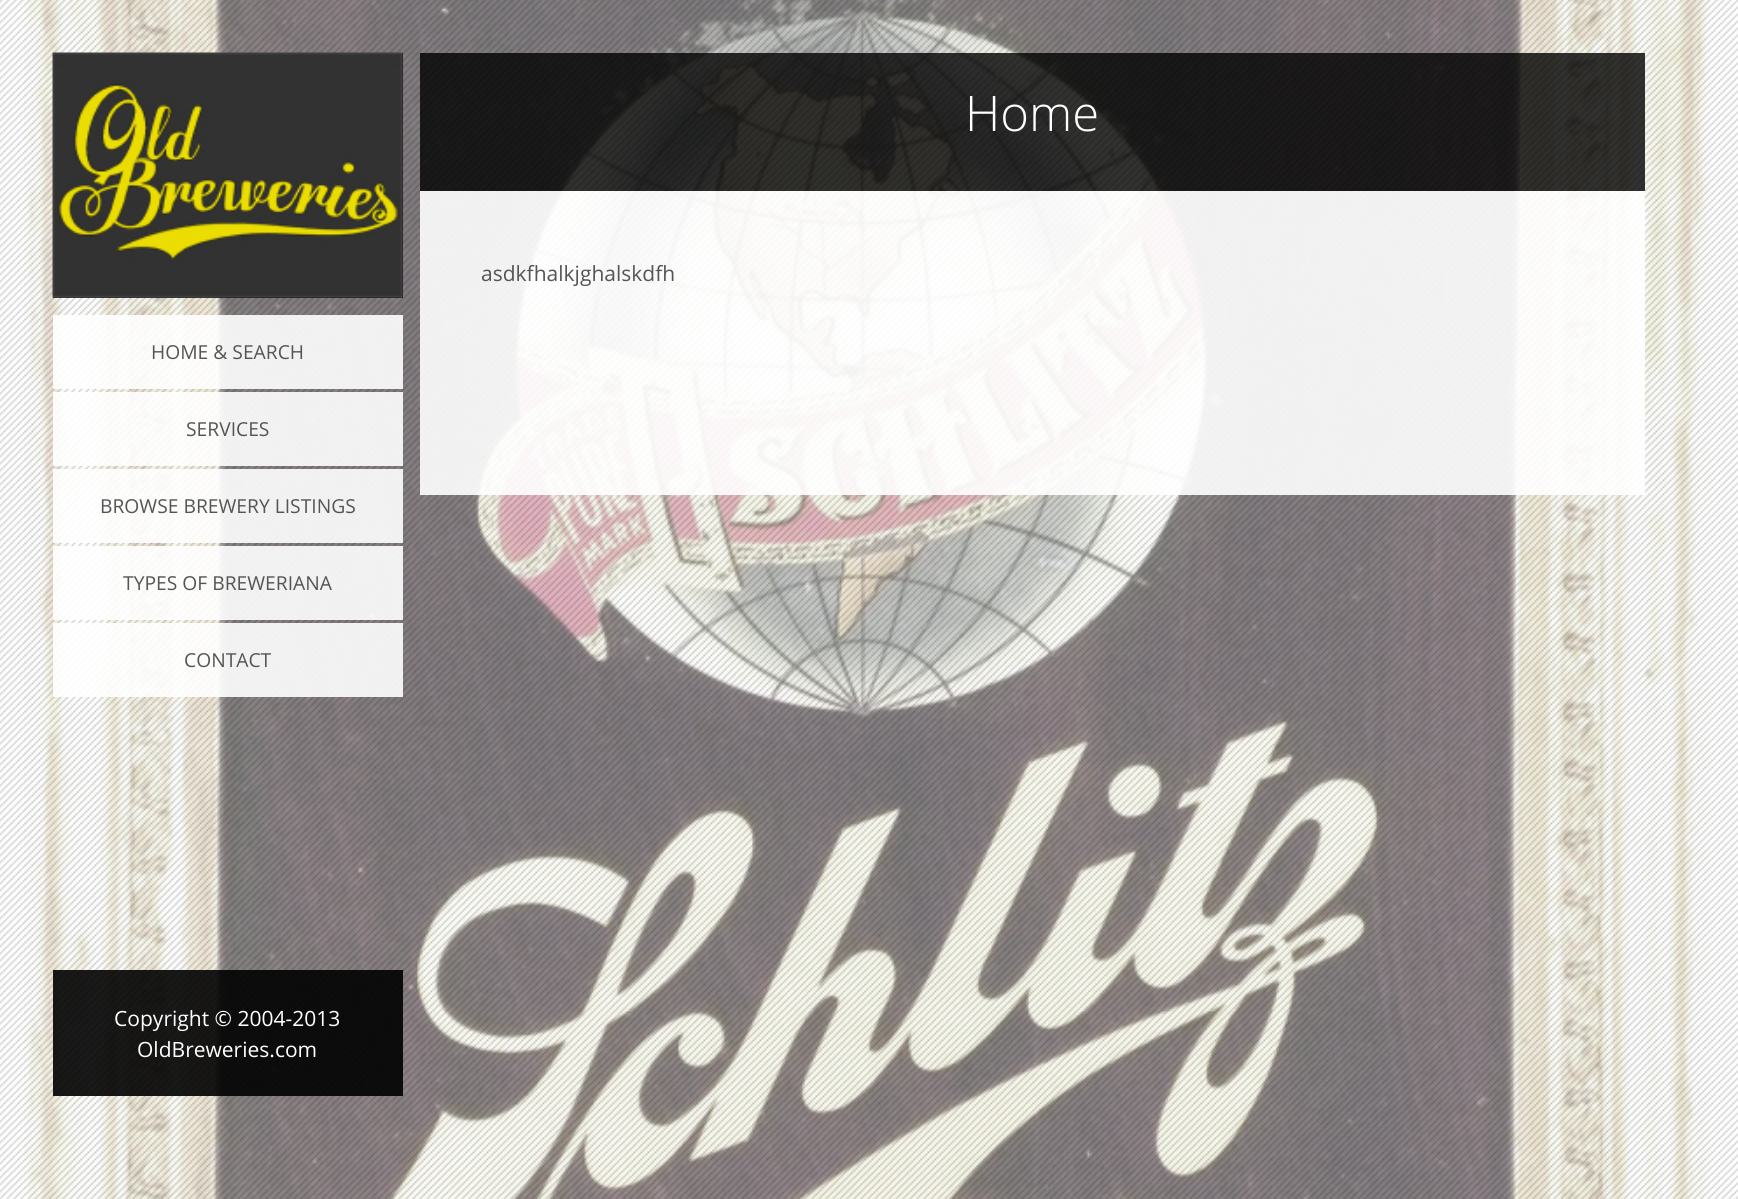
import math
import cairo

surface = cairo.ImageSurface(cairo.FORMAT_RGB24, 1738, 1199)
c = cairo.Context(surface)
options = cairo.FontOptions()
options.set_hint_metrics(cairo.HINT_METRICS_OFF)
options.set_hint_style(cairo.HINT_STYLE_NONE)
c.set_font_options(options)
c.set_miter_limit(4)
def C(code):
 c.set_source_rgb(*(v / 255 for v in bytes.fromhex(code[-6:])))
def F(family, size, italic, bold):
 c.select_font_face(family, cairo.FONT_SLANT_ITALIC if italic else cairo.FONT_SLANT_NORMAL, cairo.FONT_WEIGHT_BOLD if bold else cairo.FONT_WEIGHT_NORMAL)
 c.set_font_size(size)
def T(x, y, s):
 c.move_to(x, y)
 c.show_text(s)
def R(x, y, w, h):
 c.rectangle(x, y, w, h)
 c.fill()
def I(path, x, y, w, h):
 c.save()
 c.set_source_surface(cairo.ImageSurface.create_from_png(path), x, y)
 c.rectangle(x, y, w, h)
 c.fill()
 c.restore()
C('ffffff')
c.paint()
I('2.png',24,0,1686,1199)
I('1.png',0,0,1738,1199)
c.set_source_rgba(0,0,0,0.8)
R(420,53,1225,138)
F('Open Sans Light',49,0,0)
C('ffffff')
T(965,131,'Home')
c.set_source_rgba(1,1,1,0.9)
R(420,191,1225,304)
F('Open Sans',21,0,0)
C('555555')
T(481,281,'asdkfhalkjghalskdfh')
c.set_source_rgba(0,0,0,0.8)
R(53,53,350,245)
I('3.png',52,52,351,246)
c.set_source_rgba(1,1,1,0.9)
R(53,315,350,74)
F('Open Sans',19.25,0,0)
C('555555')
T(151,359,'HOME & SEARCH')
c.set_source_rgba(1,1,1,0.9)
R(53,392,350,74)
C('555555')
T(186,436,'SERVICES')
c.set_source_rgba(1,1,1,0.9)
R(53,469,350,74)
C('555555')
T(100,513,'BROWSE BREWERY LISTINGS')
c.set_source_rgba(1,1,1,0.9)
R(53,546,350,74)
C('555555')
T(123,590,'TYPES OF BREWERIANA')
c.set_source_rgba(1,1,1,0.9)
R(53,623,350,74)
C('555555')
T(184,667,'CONTACT')
c.set_source_rgba(0,0,0,0.9)
R(53,970,350,126)
F('Open Sans',21,0,0)
C('ffffff')
T(114,1026,'Copyright © 2004-2013')
T(137,1057,'OldBreweries.com')
surface.write_to_png('o.png')
